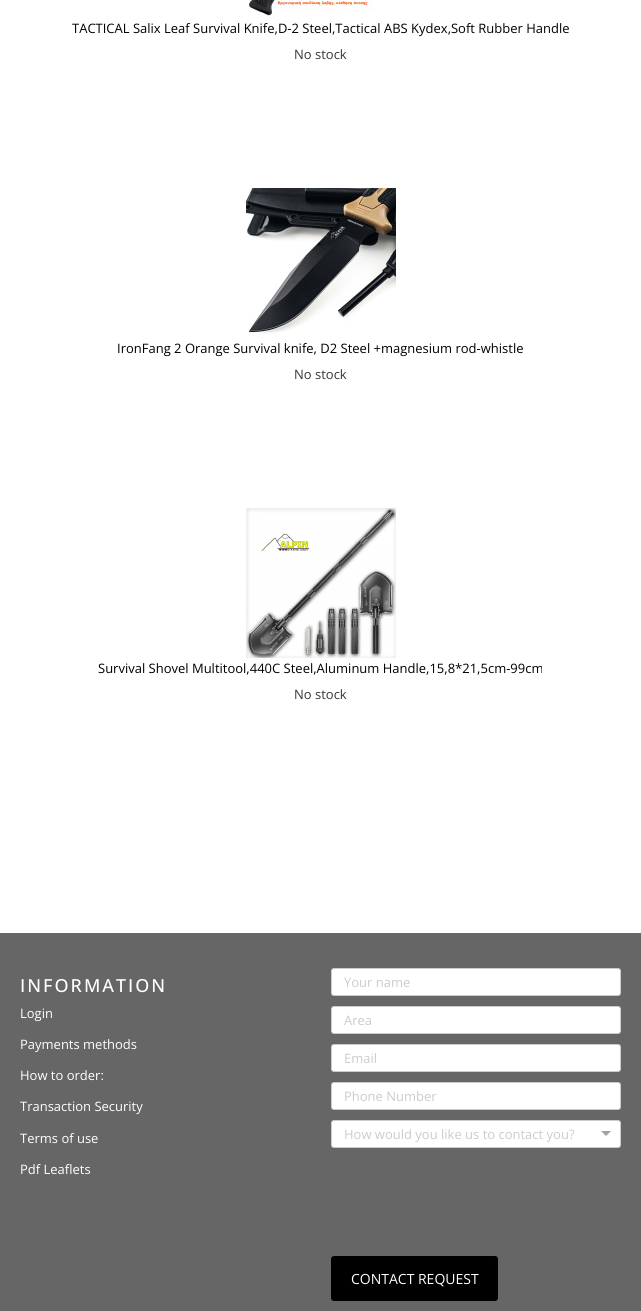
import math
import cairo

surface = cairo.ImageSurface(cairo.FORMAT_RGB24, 641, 1311)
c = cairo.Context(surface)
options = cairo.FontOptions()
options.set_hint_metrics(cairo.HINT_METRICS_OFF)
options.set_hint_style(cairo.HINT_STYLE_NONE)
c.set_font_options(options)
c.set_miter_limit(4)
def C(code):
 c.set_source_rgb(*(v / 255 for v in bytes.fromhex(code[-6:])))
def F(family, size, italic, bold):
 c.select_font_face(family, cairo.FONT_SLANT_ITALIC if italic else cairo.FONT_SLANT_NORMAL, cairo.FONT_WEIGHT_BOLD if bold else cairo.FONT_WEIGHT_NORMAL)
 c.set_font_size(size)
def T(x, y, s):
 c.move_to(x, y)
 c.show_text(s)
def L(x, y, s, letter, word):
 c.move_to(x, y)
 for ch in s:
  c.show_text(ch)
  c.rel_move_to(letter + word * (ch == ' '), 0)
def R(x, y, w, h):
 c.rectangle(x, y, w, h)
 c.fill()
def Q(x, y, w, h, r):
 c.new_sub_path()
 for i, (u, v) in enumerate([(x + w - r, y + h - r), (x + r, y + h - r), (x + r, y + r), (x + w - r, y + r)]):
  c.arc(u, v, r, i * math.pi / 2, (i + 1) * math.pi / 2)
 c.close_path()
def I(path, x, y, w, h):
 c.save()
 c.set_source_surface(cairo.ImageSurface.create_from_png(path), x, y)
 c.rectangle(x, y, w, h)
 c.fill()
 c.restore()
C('ffffff')
c.paint()
I('1.png',248,0,126,16)
F('Open Sans',13,0,0)
C('000000')
T(72,33,'TACTICAL Salix Leaf Survival Knife,D-2 Steel,Tactical ABS Kydex,Soft Rubber Handle')
C('393535')
T(294,59,'No stock')
I('2.png',246,188,150,146)
C('000000')
T(117,353,'IronFang 2 Orange Survival knife, D2 Steel +magnesium rod-whistle')
C('393535')
T(294,379,'No stock')
I('3.png',246,508,150,150)
C('000000')
T(98,673,'Survival Shovel Multitool,440C Steel,Aluminum Handle,15,8*21,5cm-99cm')
C('393535')
T(294,699,'No stock')
C('666666')
R(0,933,641,378)
F('Open Sans Medium',18,0,0)
C('ffffff')
L(20,992,'ΙNFORMATION',2,0)
F('Open Sans',13,0,0)
T(20,1018,'Login')
T(20,1049,'Payments methods')
T(20,1080,'How to order:')
T(20,1111,'Transaction Security')
T(20,1143,'Terms of use')
T(20,1174,'Pdf Leaflets')
Q(331.5,968.5,289,27,2.5)
c.fill_preserve()
C('cccccc')
c.set_line_width(1)
c.stroke()
C('cbcbcb')
T(344,987,'Your name')
C('ffffff')
Q(331.5,1006.5,289,27,2.5)
c.fill_preserve()
C('cccccc')
c.stroke()
C('cbcbcb')
T(344,1025,'Area')
C('ffffff')
Q(331.5,1044.5,289,27,2.5)
c.fill_preserve()
C('cccccc')
c.stroke()
C('cbcbcb')
T(344,1063,'Email')
C('ffffff')
Q(331.5,1082.5,289,27,2.5)
c.fill_preserve()
C('cccccc')
c.stroke()
C('cbcbcb')
T(344,1101,'Phone Number')
C('ffffff')
Q(331.5,1120.5,289,27,2.5)
c.fill_preserve()
C('cccccc')
c.stroke()
C('cbcbcb')
T(344,1139,'How would you like us to contact you?')
C('a0a0a0')
c.new_path()
c.move_to(601,1131)
c.line_to(611,1131)
c.line_to(606,1136)
c.close_path()
c.fill()
C('000000')
Q(331,1256,167,45,3)
c.fill()
F('Open Sans',14,0,0)
C('ffffff')
T(351,1284,'CONTACT REQUEST')
surface.write_to_png('o.png')
